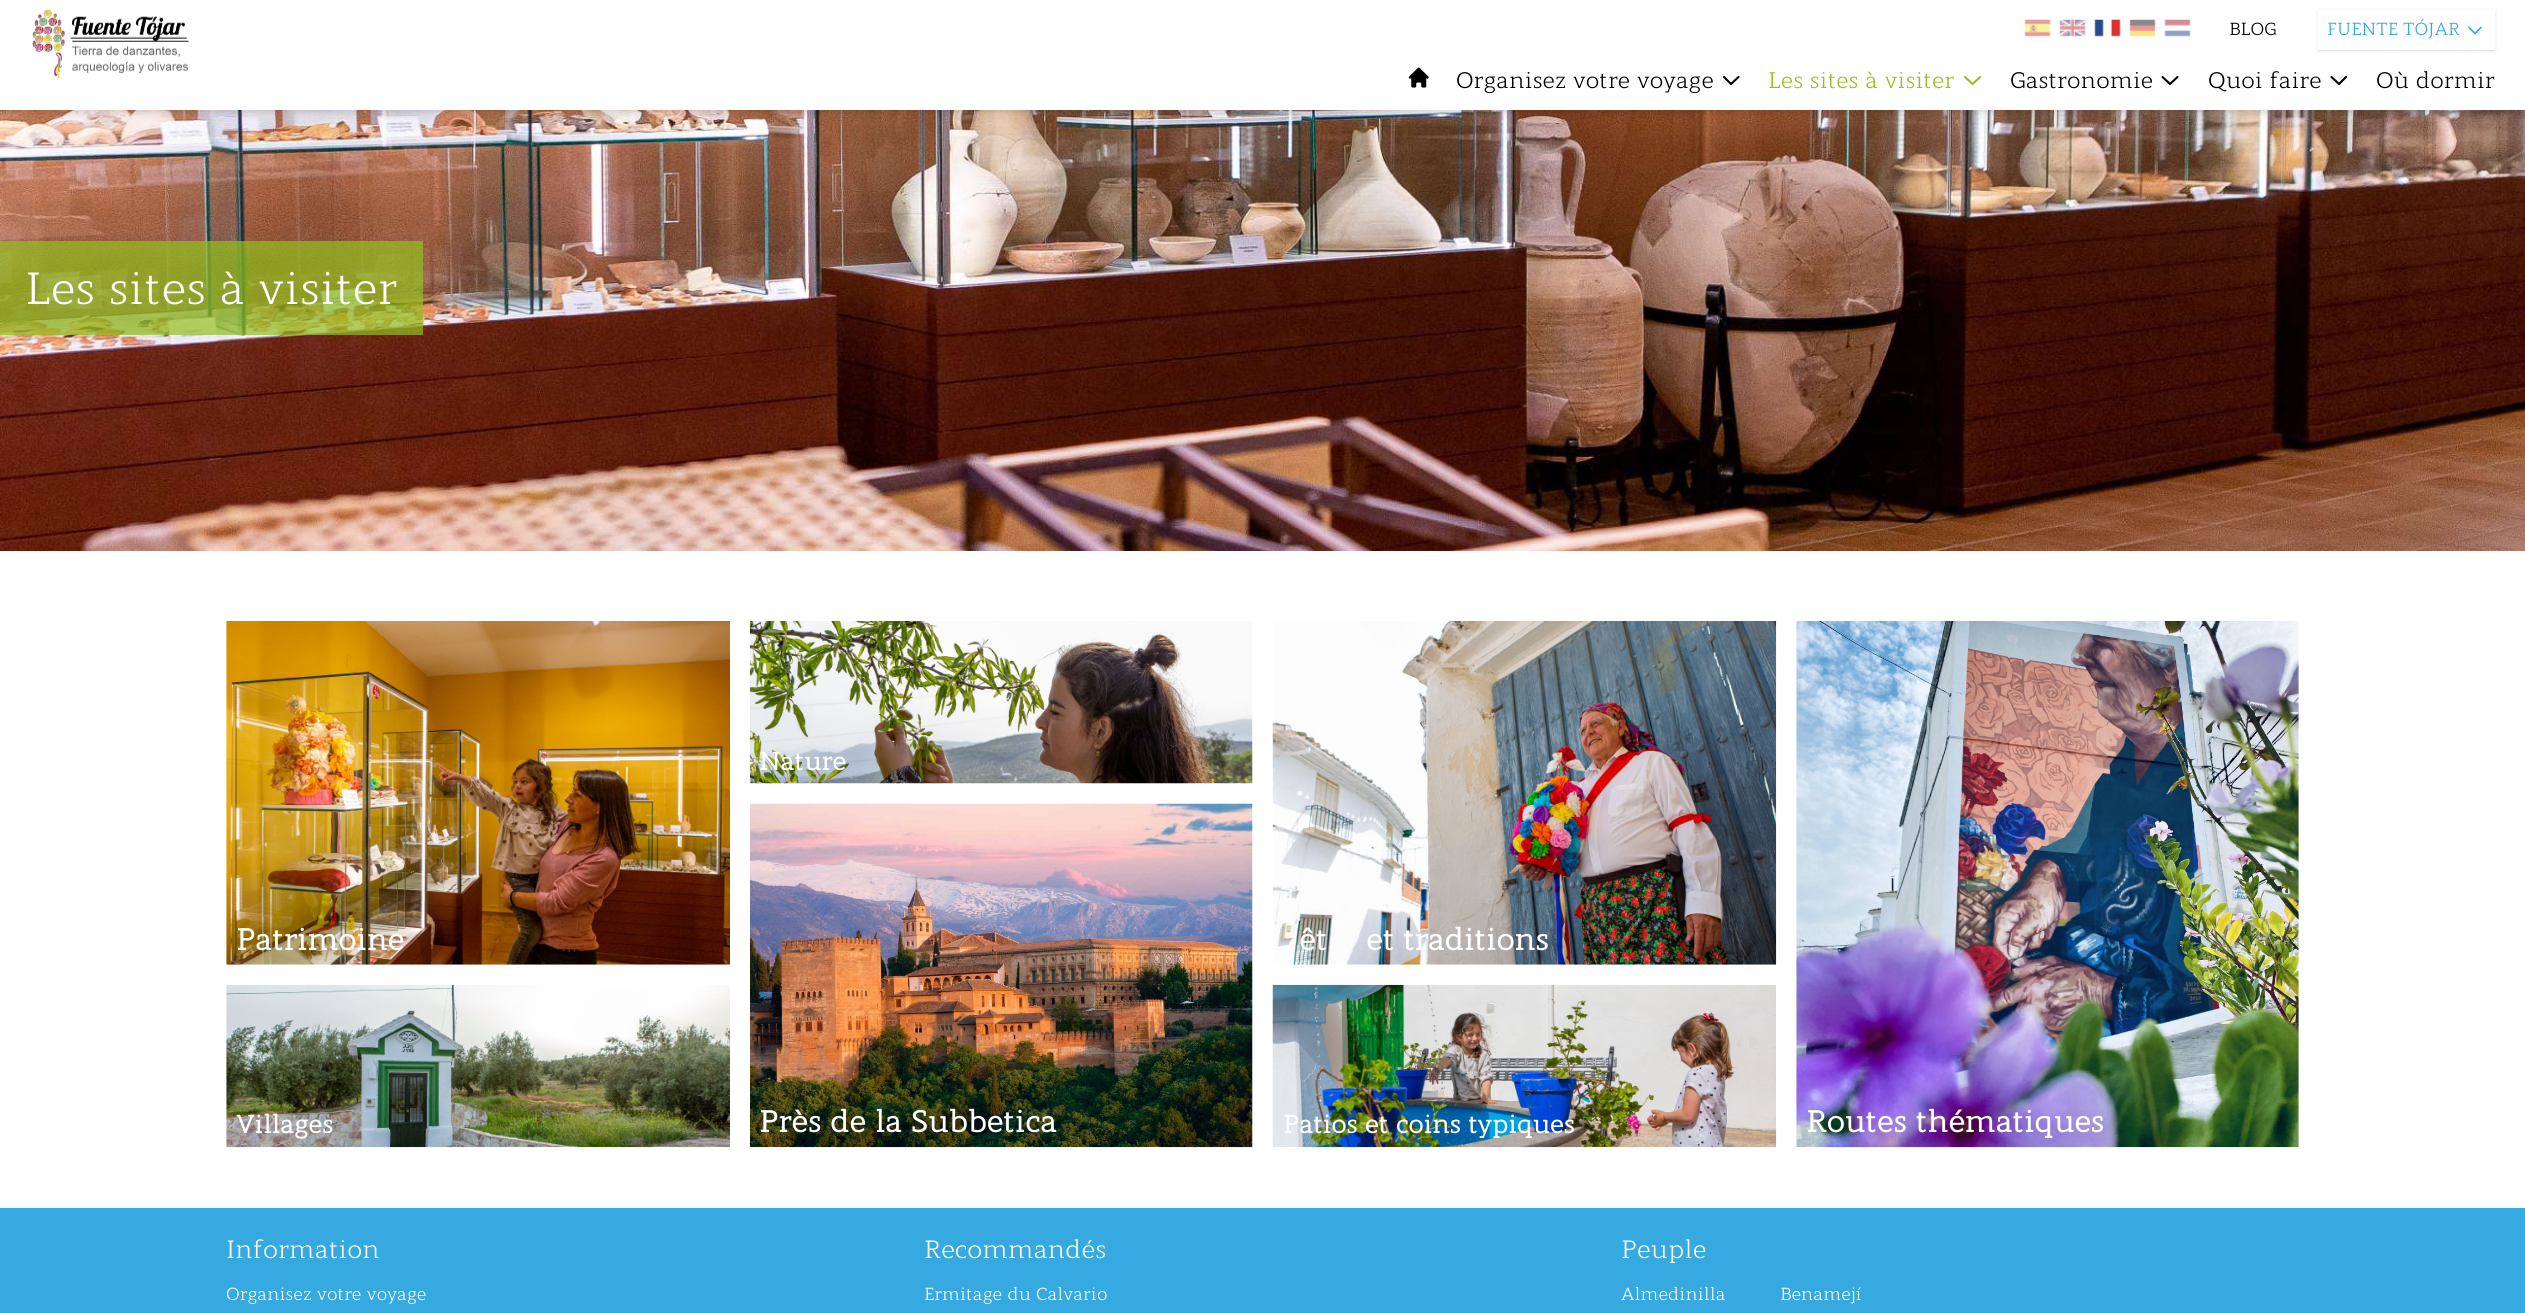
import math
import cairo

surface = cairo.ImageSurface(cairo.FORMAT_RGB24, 2525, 1313)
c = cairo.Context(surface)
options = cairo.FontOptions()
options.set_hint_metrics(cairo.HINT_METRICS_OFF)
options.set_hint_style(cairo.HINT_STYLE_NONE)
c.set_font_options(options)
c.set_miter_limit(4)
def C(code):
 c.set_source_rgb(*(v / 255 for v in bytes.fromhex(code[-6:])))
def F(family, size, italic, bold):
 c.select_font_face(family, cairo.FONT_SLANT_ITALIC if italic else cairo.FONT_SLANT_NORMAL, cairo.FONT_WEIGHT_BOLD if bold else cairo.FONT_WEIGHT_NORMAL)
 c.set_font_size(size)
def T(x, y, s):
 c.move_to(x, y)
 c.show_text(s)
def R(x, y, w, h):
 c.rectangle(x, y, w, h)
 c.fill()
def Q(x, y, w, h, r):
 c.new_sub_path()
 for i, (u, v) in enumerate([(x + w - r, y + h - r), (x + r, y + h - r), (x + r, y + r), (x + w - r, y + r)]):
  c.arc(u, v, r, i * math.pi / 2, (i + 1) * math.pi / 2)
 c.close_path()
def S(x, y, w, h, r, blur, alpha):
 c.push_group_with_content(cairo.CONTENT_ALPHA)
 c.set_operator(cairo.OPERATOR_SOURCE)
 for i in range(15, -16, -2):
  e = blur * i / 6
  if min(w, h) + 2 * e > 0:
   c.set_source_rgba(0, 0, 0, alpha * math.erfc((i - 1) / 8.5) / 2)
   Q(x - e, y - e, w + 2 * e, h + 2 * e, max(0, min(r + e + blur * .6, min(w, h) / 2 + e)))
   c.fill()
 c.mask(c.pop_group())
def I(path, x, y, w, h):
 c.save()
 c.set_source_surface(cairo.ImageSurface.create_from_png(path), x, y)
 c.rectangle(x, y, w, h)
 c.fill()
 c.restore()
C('ffffff')
c.paint()
I('8.png',0,110,2525,441)
C('000000')
S(1,4,2523,107,0,2.5,.06)
S(1,6,2523,108,0,4,.1)
C('ffffff')
R(0,0,2525,110)
I('1.png',32,9,157,71)
I('2.png',2024,19,27,18)
I('3.png',2059,19,27,18)
I('4.png',2094,19,27,18)
I('5.png',2129,19,27,18)
I('6.png',2164,19,27,18)
F('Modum',17.5,0,0)
C('000000')
T(2229,35,'BLOG')
c.save()
c.rectangle(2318,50,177,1)
c.clip()
C('000000')
S(2318,11,177,40,0,1,.06)
c.restore()
c.save()
c.set_fill_rule(cairo.FILL_RULE_EVEN_ODD)
c.new_path()
c.move_to(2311,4)
c.line_to(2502,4)
c.line_to(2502,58)
c.line_to(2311,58)
c.close_path()
c.move_to(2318,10)
c.line_to(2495,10)
c.line_to(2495,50)
c.line_to(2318,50)
c.close_path()
c.clip()
C('000000')
S(2318,11,177,40,0,2,.1)
c.restore()
C('36a9e0')
T(2327,35,'FUENTE TÓJAR')
c.new_path()
c.move_to(2481,27.5)
c.line_to(2475,33.5)
c.line_to(2469,27.5)
c.set_line_width(1.7)
c.set_line_cap(cairo.LINE_CAP_ROUND)
c.set_line_join(cairo.LINE_JOIN_ROUND)
c.stroke()
I('7.png',1408,67,21,21)
F('Modum',22.5,0,0)
C('000000')
T(1456,88,'Organisez votre voyage')
c.new_path()
c.move_to(1738.5,77)
c.line_to(1731,84)
c.line_to(1724,77)
c.set_line_width(2.1)
c.stroke()
C('95c11e')
T(1768,88,'Les sites à visiter')
c.new_path()
c.move_to(1980,77)
c.line_to(1972.5,84)
c.line_to(1965,77)
c.stroke()
C('000000')
T(2010,88,'Gastronomie')
c.new_path()
c.move_to(2177.5,77)
c.line_to(2170,84)
c.line_to(2162.5,77)
c.stroke()
T(2208,88,'Quoi faire')
c.new_path()
c.move_to(2346,77)
c.line_to(2339,84)
c.line_to(2331.5,77)
c.stroke()
T(2376,88,'Où dormir')
c.set_source_rgba(0.584,0.757,0.118,0.7)
R(0,241,423,94)
F('Modum',45,0,0)
C('ffffff')
T(25,304,'Les sites à visiter')
I('9.png',750,621,503,163)
F('Modum',25,0,1)
T(759,770,'Nature')
I('10.png',226,621,504,344)
F('Modum',30,0,1)
T(236,950,'Patrimoine')
I('11.png',1272,621,505,344)
T(1299,950,'êt')
T(1366,950,'et traditions')
I('12.png',226,984,504,164)
F('Modum',25,0,1)
T(236,1133,'Villages')
I('13.png',750,803,503,345)
F('Modum',30,0,1)
T(759,1132,'Près de la Subbetica')
I('14.png',1272,984,505,164)
F('Modum',25,0,1)
T(1283,1133,'Patios et coins typiques')
I('15.png',1796,621,503,527)
F('Modum',30,0,1)
T(1806,1132,'Routes thématiques')
C('36a9e0')
R(0,1208,2525,105)
F('Modum',25,0,0)
C('ffffff')
T(226,1258,'Information')
F('Modum',17.5,0,0)
T(226,1300,'Organisez votre voyage')
F('Modum',25,0,0)
T(924,1258,'Recommandés')
F('Modum',17.5,0,0)
T(924,1300,'Ermitage du Calvario')
F('Modum',25,0,0)
T(1621,1258,'Peuple')
F('Modum',17.5,0,0)
T(1621,1300,'Almedinilla')
T(1780,1300,'Benamejí')
surface.write_to_png('o.png')
